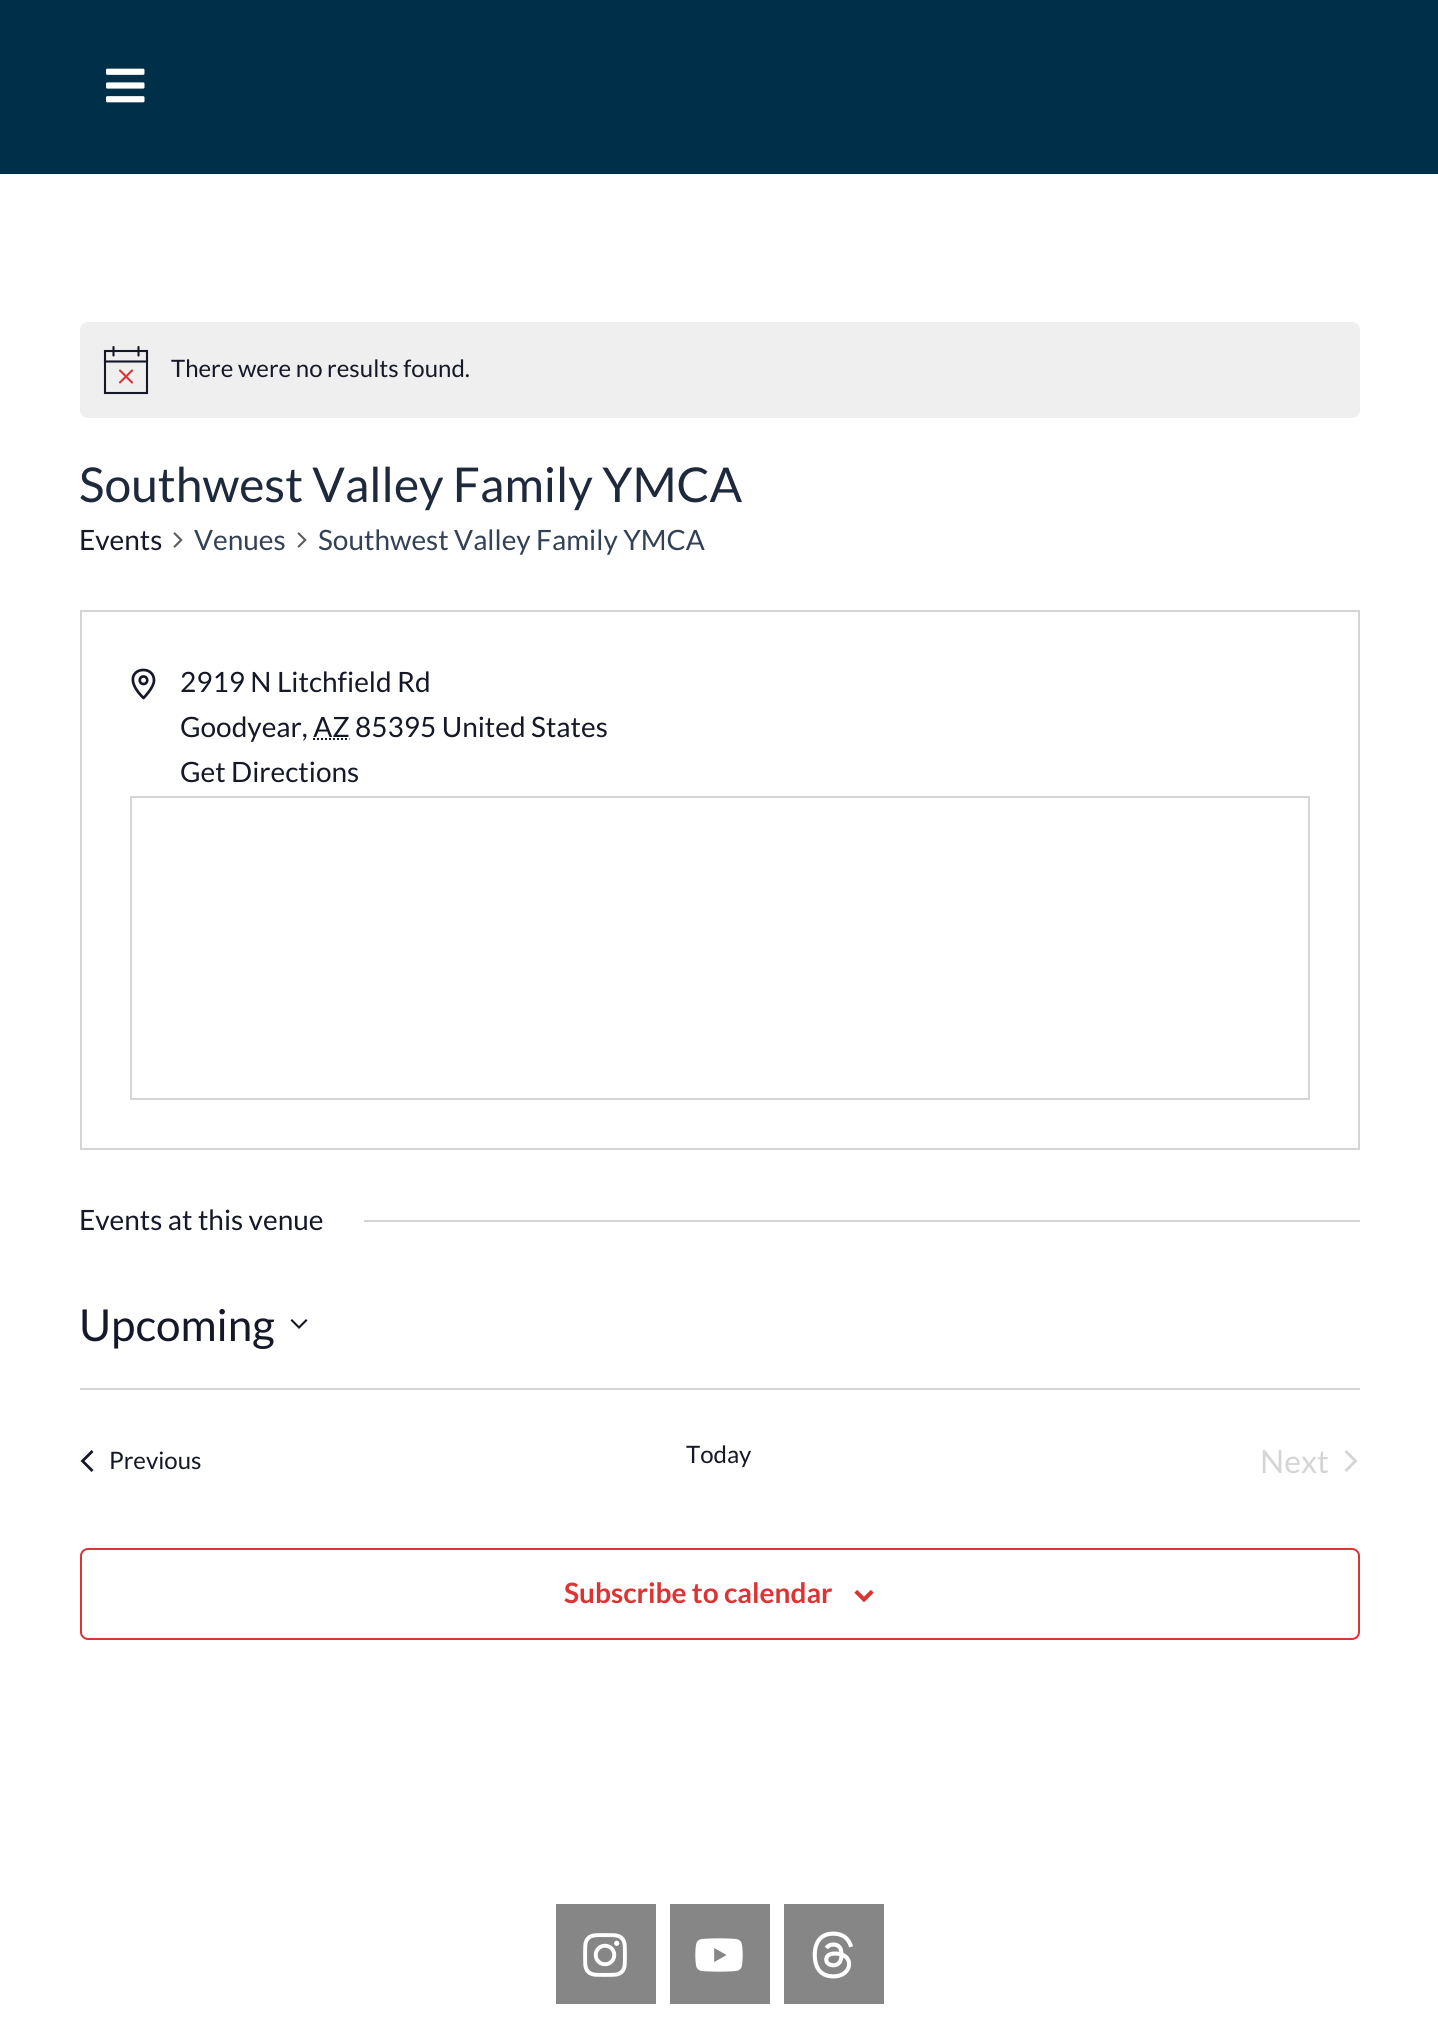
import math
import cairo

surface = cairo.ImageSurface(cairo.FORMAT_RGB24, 1438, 2032)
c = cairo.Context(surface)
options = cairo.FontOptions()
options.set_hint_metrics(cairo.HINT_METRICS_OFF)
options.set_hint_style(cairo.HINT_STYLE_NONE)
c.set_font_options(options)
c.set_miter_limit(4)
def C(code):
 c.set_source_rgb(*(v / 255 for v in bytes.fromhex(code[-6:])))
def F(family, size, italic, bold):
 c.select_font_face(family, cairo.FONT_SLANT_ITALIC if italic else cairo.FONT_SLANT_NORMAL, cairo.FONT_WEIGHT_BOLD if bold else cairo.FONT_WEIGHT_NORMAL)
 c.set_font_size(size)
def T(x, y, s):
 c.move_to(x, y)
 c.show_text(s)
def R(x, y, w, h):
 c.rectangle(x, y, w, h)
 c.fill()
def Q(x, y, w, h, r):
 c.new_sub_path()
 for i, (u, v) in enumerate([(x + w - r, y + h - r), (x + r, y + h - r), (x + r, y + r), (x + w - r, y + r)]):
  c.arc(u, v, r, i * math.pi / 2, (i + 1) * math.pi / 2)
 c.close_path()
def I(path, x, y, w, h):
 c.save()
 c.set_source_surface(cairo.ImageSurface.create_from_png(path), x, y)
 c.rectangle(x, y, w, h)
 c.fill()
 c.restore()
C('ffffff')
c.paint()
C('003049')
R(0,0,1438,174)
I('1.png',106,68,39,35)
C('efeff0')
Q(80,322,1280,96,8)
c.fill()
c.new_path()
c.move_to(105,351)
c.line_to(147,351)
c.line_to(147,393)
c.line_to(105,393)
c.close_path()
C('141827')
c.set_line_width(2.1)
c.stroke()
c.new_path()
c.move_to(120,370.5)
c.line_to(132,382.5)
c.move_to(132,370.5)
c.line_to(120,382.5)
C('dd3333')
c.set_line_cap(cairo.LINE_CAP_ROUND)
c.stroke()
c.new_path()
c.move_to(113.5,347)
c.line_to(113.5,355.5)
c.move_to(138.5,347)
c.line_to(138.5,355.5)
C('141827')
c.stroke()
c.new_path()
c.move_to(105,361.5)
c.line_to(147,361.5)
c.set_line_cap(cairo.LINE_CAP_SQUARE)
c.stroke()
F('Lato',24,0,0)
T(171,377,'There were no results found.')
F('Lato',48,0,0)
C('1e293b')
T(79,502,'Southwest Valley Family YMCA')
F('Lato',28,0,0)
C('141827')
T(79,550,'Events')
I('2.png',173,532,10,16)
C('334155')
T(194,550,'Venues')
I('2.png',297,532,10,16)
T(318,550,'Southwest Valley Family YMCA')
c.rectangle(81,611,1278,538)
C('d5d5d5')
c.set_line_width(2)
c.set_line_cap(cairo.LINE_CAP_BUTT)
c.stroke()
c.new_path()
c.move_to(154,680.5)
c.curve_to(154,687.5,143.5,698,143.5,698)
c.curve_to(114.5,669.5,154,661,154,680.5)
c.close_path()
c.move_to(143.5,684)
c.curve_to(148.5,684,148.5,676.5,143.5,676.5)
c.curve_to(138.5,676.5,138.5,684,143.5,684)
c.close_path()
C('141827')
c.set_line_width(2.7)
c.set_line_cap(cairo.LINE_CAP_ROUND)
c.set_line_join(cairo.LINE_JOIN_ROUND)
c.stroke()
T(180,692,'2919 N Litchfield Rd')
T(180,737,'Goodyear, AZ 85395 United States')
c.new_path()
c.move_to(313,739)
c.line_to(349.5,739)
c.set_line_width(2)
c.set_line_cap(cairo.LINE_CAP_BUTT)
c.set_line_join(cairo.LINE_JOIN_MITER)
c.set_dash([2,2])
c.stroke()
T(180,782,'Get Directions')
c.rectangle(131,797,1178,302)
C('d5d5d5')
c.set_dash([])
c.stroke()
C('141827')
T(79,1230,'Events at this venue')
C('d5d5d5')
R(364,1220,996,2)
F('Lato',44,0,0)
C('141827')
T(79,1341,'Upcoming')
c.set_fill_rule(cairo.FILL_RULE_EVEN_ODD)
c.new_path()
c.move_to(292,1319)
c.line_to(299,1326)
c.line_to(306,1319)
c.line_to(307.5,1320.5)
c.line_to(299,1329)
c.line_to(290.5,1320.5)
c.close_path()
c.fill()
C('d5d5d5')
R(80,1388,1280,2)
C('141827')
c.set_fill_rule(cairo.FILL_RULE_WINDING)
c.new_path()
c.move_to(93.5,1470)
c.line_to(91.5,1472)
c.line_to(80.5,1461)
c.line_to(91.5,1450)
c.line_to(93.5,1452)
c.line_to(84.5,1461)
c.close_path()
c.fill()
F('Lato',24,0,0)
T(109,1469,'Previous')
T(686,1463,'Today')
F('Lato',32,0,0)
C('d5d5d5')
T(1260,1473,'Next')
c.new_path()
c.move_to(1344.5,1452)
c.line_to(1346.5,1450)
c.line_to(1357.5,1461)
c.line_to(1346.5,1472)
c.line_to(1344.5,1470)
c.line_to(1353.5,1461)
c.close_path()
c.fill()
Q(81,1549,1278,90,7)
C('dd3333')
c.stroke()
F('Lato',28,0,1)
T(564,1603,'Subscribe to calendar')
I('3.png',854,1590,20,12)
C('868686')
R(556,1904,100,100)
I('4.png',583,1933,44,44)
R(670,1904,100,100)
I('5.png',695,1938,48,34)
R(784,1904,100,100)
I('6.png',812,1931,41,48)
surface.write_to_png('o.png')
